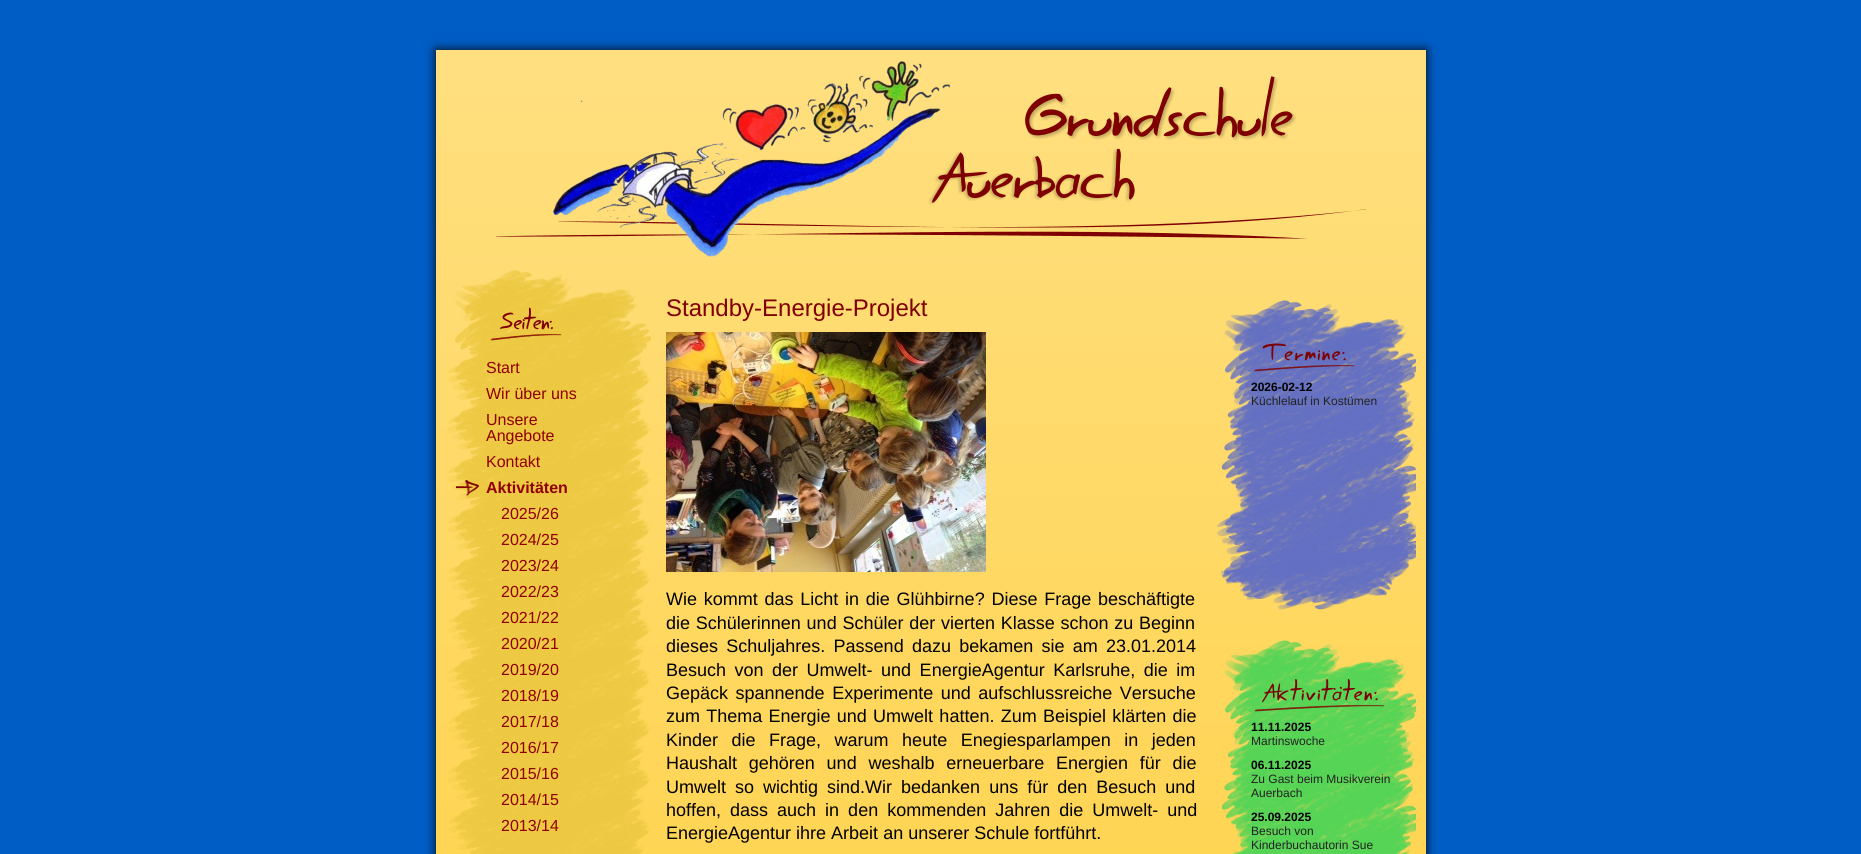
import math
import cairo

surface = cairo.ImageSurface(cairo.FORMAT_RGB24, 1861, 854)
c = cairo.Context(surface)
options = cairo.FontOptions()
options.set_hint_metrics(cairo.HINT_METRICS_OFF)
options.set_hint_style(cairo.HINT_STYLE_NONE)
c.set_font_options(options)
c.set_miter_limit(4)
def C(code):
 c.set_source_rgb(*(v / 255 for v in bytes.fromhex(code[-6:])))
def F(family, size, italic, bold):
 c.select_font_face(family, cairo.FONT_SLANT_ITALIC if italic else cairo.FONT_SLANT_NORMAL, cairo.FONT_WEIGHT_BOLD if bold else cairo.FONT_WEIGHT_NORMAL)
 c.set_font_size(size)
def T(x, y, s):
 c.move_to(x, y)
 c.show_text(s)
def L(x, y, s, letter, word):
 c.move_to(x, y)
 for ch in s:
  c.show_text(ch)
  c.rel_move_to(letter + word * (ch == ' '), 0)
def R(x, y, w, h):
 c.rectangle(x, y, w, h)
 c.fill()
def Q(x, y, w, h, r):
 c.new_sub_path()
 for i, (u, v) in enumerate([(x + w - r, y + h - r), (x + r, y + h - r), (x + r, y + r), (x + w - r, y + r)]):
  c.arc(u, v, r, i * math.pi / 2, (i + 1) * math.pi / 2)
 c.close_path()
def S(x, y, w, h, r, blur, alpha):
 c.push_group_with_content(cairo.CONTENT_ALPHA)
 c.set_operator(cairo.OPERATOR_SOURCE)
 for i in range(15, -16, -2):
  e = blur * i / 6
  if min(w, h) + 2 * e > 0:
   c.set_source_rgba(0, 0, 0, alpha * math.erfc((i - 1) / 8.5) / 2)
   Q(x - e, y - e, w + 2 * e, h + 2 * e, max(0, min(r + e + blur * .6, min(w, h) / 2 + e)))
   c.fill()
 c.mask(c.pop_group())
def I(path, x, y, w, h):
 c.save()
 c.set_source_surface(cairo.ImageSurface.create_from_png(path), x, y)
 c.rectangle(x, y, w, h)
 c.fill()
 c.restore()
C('005dc5')
c.paint()
C('000000')
S(436,50,990,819,0,5,1)
gradient = cairo.LinearGradient(931,50,931,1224)
gradient.add_color_stop_rgba(0,1,0.875,0.502,1)
gradient.add_color_stop_rgba(1,1,0.816,0.251,1)
c.set_source(gradient)
R(436,50,990,804)
I('1.png',496,61,870,196)
I('2.png',455,270,197,80)
I('3.png',447,350,204,504)
F('Liberation Sans',16,0,0)
C('900000')
T(486,373,'Start')
T(486,399,'Wir über uns')
T(486,425,'Unsere')
T(486,441,'Angebote')
T(486,467,'Kontakt')
I('4.png',456,480,23,16)
F('Liberation Sans',16,0,1)
T(486,493,'Aktivitäten')
F('Liberation Sans',16,0,0)
T(501,519,'2025/26')
T(501,545,'2024/25')
T(501,571,'2023/24')
T(501,597,'2022/23')
T(501,623,'2021/22')
T(501,649,'2020/21')
T(501,675,'2019/20')
T(501,701,'2018/19')
T(501,727,'2017/18')
T(501,753,'2016/17')
T(501,779,'2015/16')
T(501,805,'2014/15')
T(501,831,'2013/14')
F('Liberation Sans',24,0,0)
C('800000')
T(666,316,'Standby-Energie-Projekt')
I('5.png',666,332,320,240)
F('Liberation Sans',18,0,0)
C('000000')
L(666,605,'Wie kommt das Licht in die Glühbirne? Diese Frage beschäftigte',0,1.75)
L(666,629,'die Schülerinnen und Schüler der vierten Klasse schon zu Beginn',0,.75)
L(666,652,'dieses Schuljahres. Passend dazu bekamen sie am 23.01.2014',0,3.25)
L(666,676,'Besuch von der Umwelt- und EnergieAgentur Karlsruhe, die im',0,3.5)
L(666,699,'Gepäck spannende Experimente und aufschlussreiche Versuche',0,2.5)
L(666,722,'zum Thema Energie und Umwelt hatten. Zum Beispiel klärten die',0,1.25)
L(666,746,'Kinder die Frage, warum heute Enegiesparlampen in jeden',0,8.5)
L(666,769,'Haushalt gehören und weshalb erneuerbare Energien für die',0,6.75)
L(666,793,'Umwelt so wichtig sind.Wir bedanken uns für den Besuch und',0,4)
L(666,816,'hoffen, dass auch in den kommenden Jahren die Umwelt- und',0,4)
T(666,839,'EnergieAgentur ihre Arbeit an unserer Schule fortführt.')
I('6.png',1216,300,200,310)
F('Liberation Sans',12,0,1)
T(1251,391,'2026-02-12')
F('Liberation Sans',12,0,0)
C('222222')
T(1251,405,'Küchlelauf in Kostümen')
I('7.png',1221,640,195,214)
F('Liberation Sans',12,0,1)
C('000000')
T(1251,731,'11.11.2025')
F('Liberation Sans',12,0,0)
C('222222')
T(1251,745,'Martinswoche')
F('Liberation Sans',12,0,1)
C('000000')
T(1251,769,'06.11.2025')
F('Liberation Sans',12,0,0)
C('222222')
T(1251,783,'Zu Gast beim Musikverein')
T(1251,797,'Auerbach')
F('Liberation Sans',12,0,1)
C('000000')
T(1251,821,'25.09.2025')
F('Liberation Sans',12,0,0)
C('222222')
T(1251,835,'Besuch von')
T(1251,849,'Kinderbuchautorin Sue')
surface.write_to_png('o.png')
